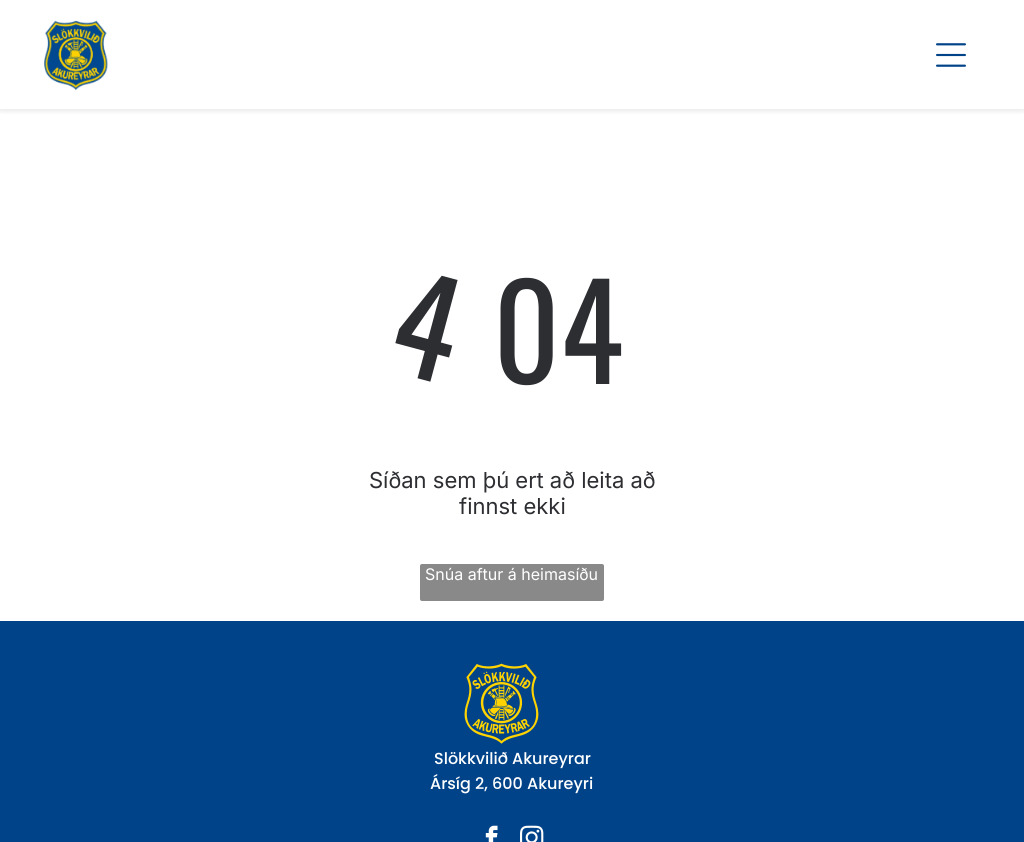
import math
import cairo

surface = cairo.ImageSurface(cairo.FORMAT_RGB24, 1024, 842)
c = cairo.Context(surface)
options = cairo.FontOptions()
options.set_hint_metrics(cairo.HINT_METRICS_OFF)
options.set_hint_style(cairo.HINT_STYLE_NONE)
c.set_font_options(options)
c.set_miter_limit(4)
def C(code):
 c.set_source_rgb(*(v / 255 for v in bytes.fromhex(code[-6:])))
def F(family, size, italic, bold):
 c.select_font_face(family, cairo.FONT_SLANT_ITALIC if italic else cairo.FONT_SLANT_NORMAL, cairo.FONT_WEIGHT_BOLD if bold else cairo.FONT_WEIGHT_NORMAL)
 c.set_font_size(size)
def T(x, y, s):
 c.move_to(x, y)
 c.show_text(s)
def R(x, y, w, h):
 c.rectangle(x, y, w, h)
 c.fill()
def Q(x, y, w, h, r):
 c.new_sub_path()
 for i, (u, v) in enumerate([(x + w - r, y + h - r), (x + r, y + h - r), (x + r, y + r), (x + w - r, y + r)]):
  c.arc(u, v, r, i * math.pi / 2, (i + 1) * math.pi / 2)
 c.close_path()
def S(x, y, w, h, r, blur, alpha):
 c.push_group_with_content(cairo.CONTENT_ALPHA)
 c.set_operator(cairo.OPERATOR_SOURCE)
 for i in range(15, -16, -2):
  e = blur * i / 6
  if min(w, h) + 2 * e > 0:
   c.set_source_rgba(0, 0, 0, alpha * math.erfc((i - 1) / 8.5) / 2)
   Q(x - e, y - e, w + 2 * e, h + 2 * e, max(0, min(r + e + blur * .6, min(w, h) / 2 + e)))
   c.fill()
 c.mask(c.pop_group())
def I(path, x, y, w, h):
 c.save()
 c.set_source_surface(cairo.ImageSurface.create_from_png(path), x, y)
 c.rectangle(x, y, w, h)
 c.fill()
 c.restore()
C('ffffff')
c.paint()
c.save()
c.rectangle(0,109,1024,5)
c.clip()
C('000000')
S(0,-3,1024,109,0,5.5,.25)
c.restore()
I('1.png',44,20,64,71)
I('2.png',936,43,30,24)
F('Oswald',130,0,0)
C('2d2e32')
c.save()
c.translate(383,369)
c.rotate(15 * math.pi / 180)
T(0,0,'4')
c.restore()
T(493,384,'04')
F('Inter',22,0,0)
T(369,488,'Síðan sem þú ert að leita að')
T(459,514,'finnst ekki')
C('898989')
Q(420,564,184,37,2)
c.fill()
F('Inter',16,0,0)
C('ffffff')
T(425,580,'Snúa aftur á heimasíðu')
C('014389')
R(0,621,1024,221)
I('3.png',464,663,75,81)
F('Poppins Medium',16,0,0)
C('ffffff')
T(434,764,'Slökkvilið Akureyrar')
T(430,789,'Ársíg 2, 600 Akureyri')
I('4.png',485,825,13,17)
I('5.png',520,825,24,17)
surface.write_to_png('o.png')
